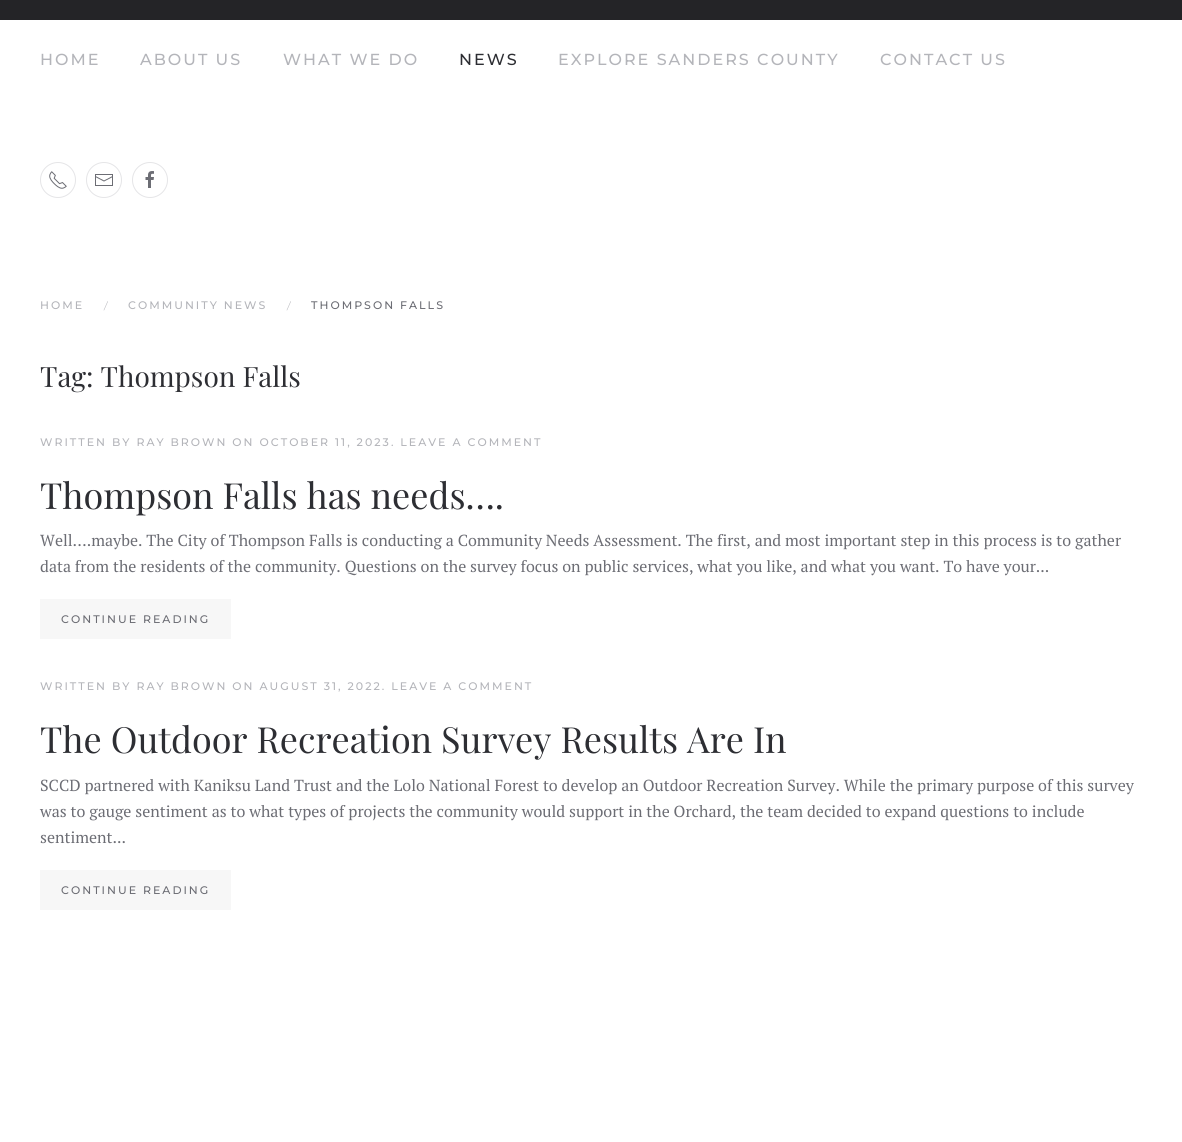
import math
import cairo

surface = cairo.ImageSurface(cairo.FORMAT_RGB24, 1182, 1142)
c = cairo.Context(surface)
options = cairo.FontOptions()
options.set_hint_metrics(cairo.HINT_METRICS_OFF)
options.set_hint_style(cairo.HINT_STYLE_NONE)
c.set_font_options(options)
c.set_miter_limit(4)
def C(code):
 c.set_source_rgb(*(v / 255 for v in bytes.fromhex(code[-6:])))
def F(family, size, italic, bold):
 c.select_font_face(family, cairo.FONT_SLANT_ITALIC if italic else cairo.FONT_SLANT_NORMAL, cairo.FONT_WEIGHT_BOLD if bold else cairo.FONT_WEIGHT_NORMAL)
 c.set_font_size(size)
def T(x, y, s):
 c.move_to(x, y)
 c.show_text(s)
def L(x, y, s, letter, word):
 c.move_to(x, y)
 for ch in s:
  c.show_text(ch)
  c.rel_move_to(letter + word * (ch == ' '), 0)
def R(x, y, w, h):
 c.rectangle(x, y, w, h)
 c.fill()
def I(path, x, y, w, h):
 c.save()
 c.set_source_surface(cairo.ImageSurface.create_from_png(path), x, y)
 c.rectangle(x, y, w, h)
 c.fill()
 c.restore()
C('ffffff')
c.paint()
C('242427')
R(0,0,1182,20)
F('Montserrat Thin',16,0,0)
C('b4b5ba')
L(40,65,'HOME',2,0)
L(140,65,'ABOUT US',2,0)
L(283,65,'WHAT WE DO',2,0)
C('2d2e33')
L(459,65,'NEWS',2,0)
C('b4b5ba')
L(558,65,'EXPLORE SANDERS COUNTY',2,0)
L(880,65,'CONTACT US',2,0)
c.new_path()
c.arc(58,180,17.5,0,2 * math.pi)
C('e5e5e7')
c.set_line_width(1)
c.stroke()
I('1.png',49,171,18,18)
c.arc(104,180,17.5,0,2 * math.pi)
c.stroke()
I('2.png',95,174,18,12)
c.arc(150,180,17.5,0,2 * math.pi)
c.stroke()
I('3.png',145,171,9,17)
F('Montserrat Thin',11,0,0)
C('b4b5ba')
L(40,309,'HOME',2,0)
F('PT Serif',11,0,0)
T(104,309,'/')
F('Montserrat Thin',11,0,0)
L(128,309,'COMMUNITY NEWS',2,0)
F('PT Serif',11,0,0)
T(287,309,'/')
F('Montserrat Thin',11,0,0)
C('6c6d74')
L(311,309,'THOMPSON FALLS',2,0)
F('Playfair Display',28,0,0)
C('2d2e33')
T(40,387,'Tag: Thompson Falls')
F('Montserrat Thin',11,0,0)
C('b4b5ba')
L(40,446,'WRITTEN BY RAY BROWN ON OCTOBER 11, 2023. LEAVE A COMMENT',2,0)
F('Playfair Display',36,0,0)
C('2d2e33')
T(40,509,'Thompson Falls has needs….')
F('PT Serif',16,0,0)
C('6c6d74')
T(40,546,'Well….maybe. The City of Thompson Falls is conducting a Community Needs Assessment. The first, and most important step in this process is to gather')
T(40,572,'data from the residents of the community. Questions on the survey focus on public services, what you like, and what you want. To have your...')
C('f7f7f7')
R(40,599,191,40)
F('Montserrat Thin',11,0,0)
C('6c6d74')
L(61,623,'CONTINUE READING',2,0)
C('b4b5ba')
L(40,690,'WRITTEN BY RAY BROWN ON AUGUST 31, 2022. LEAVE A COMMENT',2,0)
F('Playfair Display',36,0,0)
C('2d2e33')
T(40,753,'The Outdoor Recreation Survey Results Are In')
F('PT Serif',16,0,0)
C('6c6d74')
T(40,791,'SCCD partnered with Kaniksu Land Trust and the Lolo National Forest to develop an Outdoor Recreation Survey. While the primary purpose of this survey')
T(40,817,'was to gauge sentiment as to what types of projects the community would support in the Orchard, the team decided to expand questions to include')
T(40,843,'sentiment...')
C('f7f7f7')
R(40,870,191,40)
F('Montserrat Thin',11,0,0)
C('6c6d74')
L(61,894,'CONTINUE READING',2,0)
surface.write_to_png('o.png')
